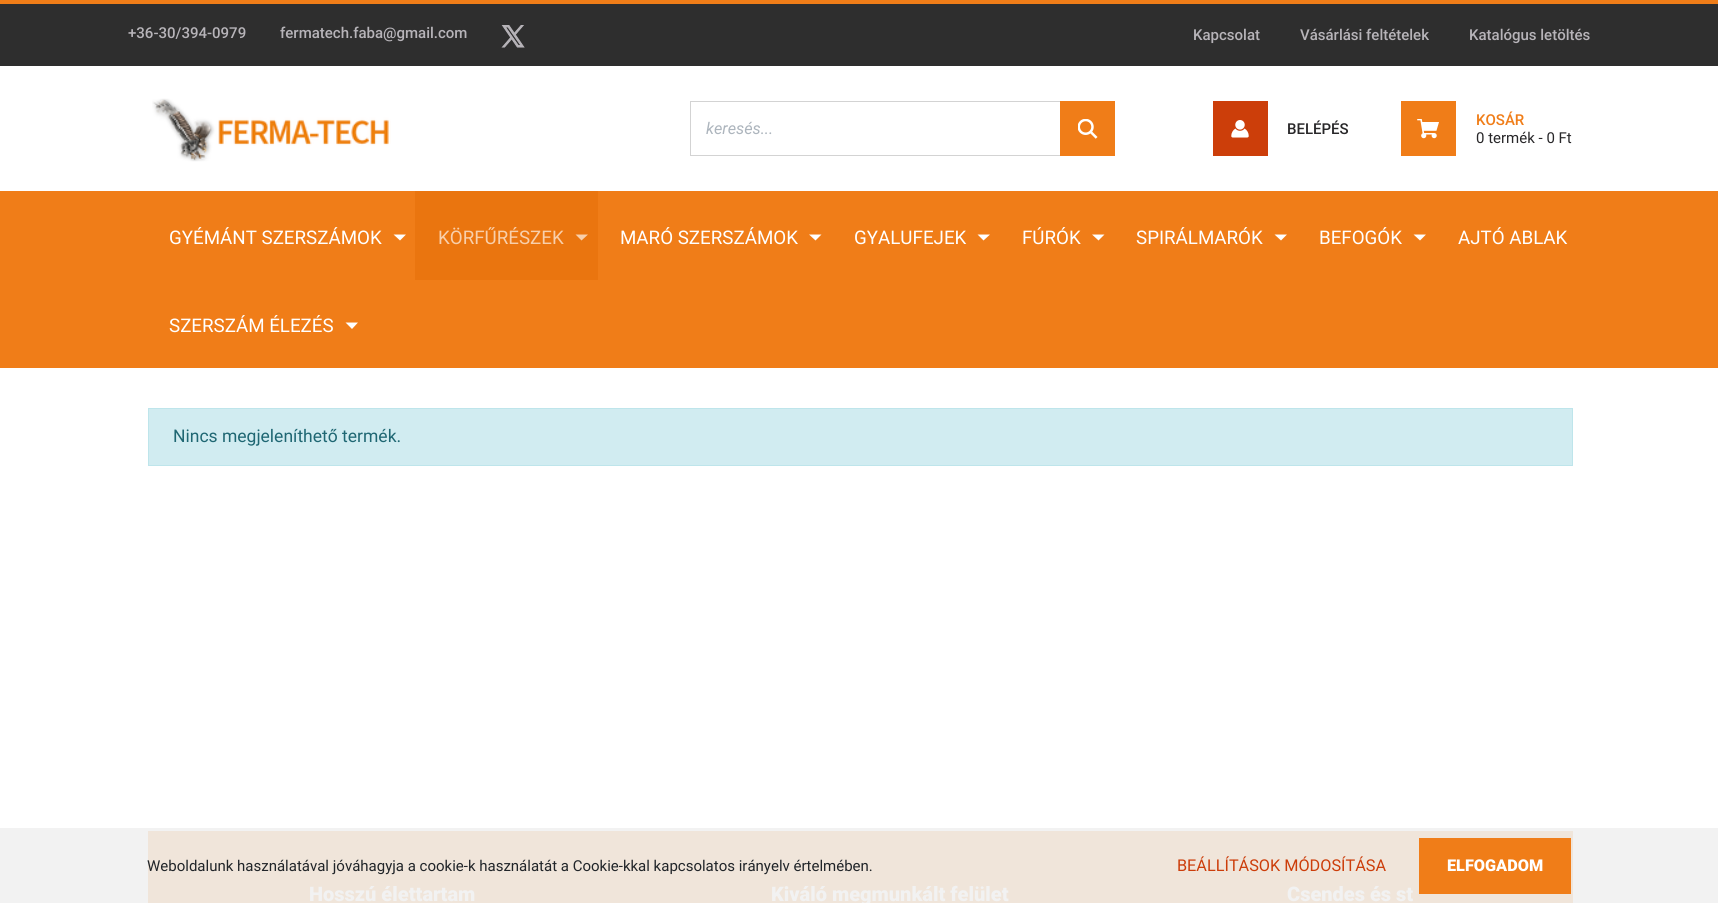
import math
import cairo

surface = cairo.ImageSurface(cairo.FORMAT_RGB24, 1718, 903)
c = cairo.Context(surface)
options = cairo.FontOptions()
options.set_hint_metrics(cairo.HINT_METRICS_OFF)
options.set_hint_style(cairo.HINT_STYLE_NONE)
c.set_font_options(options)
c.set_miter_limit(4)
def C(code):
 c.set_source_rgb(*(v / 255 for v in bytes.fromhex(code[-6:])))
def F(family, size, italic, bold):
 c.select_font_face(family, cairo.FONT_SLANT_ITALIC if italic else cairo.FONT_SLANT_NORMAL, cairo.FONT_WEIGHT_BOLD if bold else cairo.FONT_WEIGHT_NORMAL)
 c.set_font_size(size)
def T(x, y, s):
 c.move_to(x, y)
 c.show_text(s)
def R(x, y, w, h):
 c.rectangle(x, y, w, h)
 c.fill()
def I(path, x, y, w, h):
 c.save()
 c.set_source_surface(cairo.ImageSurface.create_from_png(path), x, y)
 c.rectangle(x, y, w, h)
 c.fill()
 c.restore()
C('ffffff')
c.paint()
C('f2f2f2')
R(0,828,1718,75)
C('f07d18')
R(0,0,1718,4)
C('2e2e2e')
R(0,4,1718,62)
F('Roboto Medium',15,0,0)
C('b7b4b9')
T(128,38,'+36-30/394-0979')
T(280,38,'fermatech.faba@gmail.com')
I('1.png',501,25,24,23)
T(1193,40,'Kapcsolat')
T(1300,40,'Vásárlási feltételek')
T(1469,40,'Katalógus letöltés')
I('2.png',152,98,239,64)
c.rectangle(690.5,101.5,424,54)
C('d3d3d3')
c.set_line_width(1)
c.stroke()
F('Roboto',16.25,1,0)
C('adb5bd')
T(706,134,'keresés...')
C('f07d18')
R(1060,101,55,55)
I('3.png',1078,119,20,20)
C('cc3e0a')
R(1213,101,55,55)
I('4.png',1231,120,18,18)
F('Roboto Medium',15,0,0)
C('282729')
T(1287,134,'BELÉPÉS')
C('f07d18')
R(1401,101,55,55)
I('5.png',1417,119,22,20)
T(1476,125,'KOSÁR')
F('Roboto',15,0,0)
C('282729')
T(1476,143,'0 termék - 0 Ft')
C('f07d18')
R(0,191,1718,177)
F('Roboto',18.75,0,0)
C('ffffff')
T(169,244,'GYÉMÁNT SZERSZÁMOK')
c.new_path()
c.move_to(393.5,234.5)
c.line_to(406,234.5)
c.line_to(400,240.5)
c.close_path()
c.fill()
C('ea750f')
R(415,191,183,89)
C('f8cfab')
T(438,244,'KÖRFŰRÉSZEK')
c.new_path()
c.move_to(575.5,234.5)
c.line_to(588,234.5)
c.line_to(581.5,240.5)
c.close_path()
c.fill()
C('ffffff')
T(620,244,'MARÓ SZERSZÁMOK')
c.new_path()
c.move_to(809,234.5)
c.line_to(821.5,234.5)
c.line_to(815.5,240.5)
c.close_path()
c.fill()
T(854,244,'GYALUFEJEK')
c.new_path()
c.move_to(977.5,234.5)
c.line_to(990,234.5)
c.line_to(983.5,240.5)
c.close_path()
c.fill()
T(1022,244,'FÚRÓK')
c.new_path()
c.move_to(1092,234.5)
c.line_to(1104.5,234.5)
c.line_to(1098.5,240.5)
c.close_path()
c.fill()
T(1136,244,'SPIRÁLMARÓK')
c.new_path()
c.move_to(1274.5,234.5)
c.line_to(1287,234.5)
c.line_to(1281,240.5)
c.close_path()
c.fill()
T(1319,244,'BEFOGÓK')
c.new_path()
c.move_to(1413.5,234.5)
c.line_to(1426,234.5)
c.line_to(1420,240.5)
c.close_path()
c.fill()
T(1458,244,'AJTÓ ABLAK')
T(169,332,'SZERSZÁM ÉLEZÉS')
c.new_path()
c.move_to(345.5,322.5)
c.line_to(358,322.5)
c.line_to(352,329)
c.close_path()
c.fill()
C('d1ecf1')
c.rectangle(148.5,408.5,1424,57)
c.fill_preserve()
C('bee5eb')
c.stroke()
F('Roboto',17.5,0,0)
C('1f6773')
T(173,442,'Nincs megjeleníthető termék.')
C('f0e5da')
R(148,831,1425,72)
F('Roboto Black',20,0,0)
C('f2f2f2')
T(309,901,'Hosszú élettartam')
T(771,901,'Kiváló megmunkált felület')
T(1287,901,'Csendes és st')
F('Roboto',15,0,0)
C('212529')
T(147,871,'Weboldalunk használatával jóváhagyja a cookie-k használatát a Cookie-kkal kapcsolatos irányelv értelmében.')
F('Roboto',16.25,0,0)
C('cc3d0a')
T(1177,871,'BEÁLLÍTÁSOK MÓDOSÍTÁSA')
C('f07d18')
R(1419,838,152,56)
F('Roboto Black',16.25,0,0)
C('ffffff')
T(1447,871,'ELFOGADOM')
surface.write_to_png('o.png')
